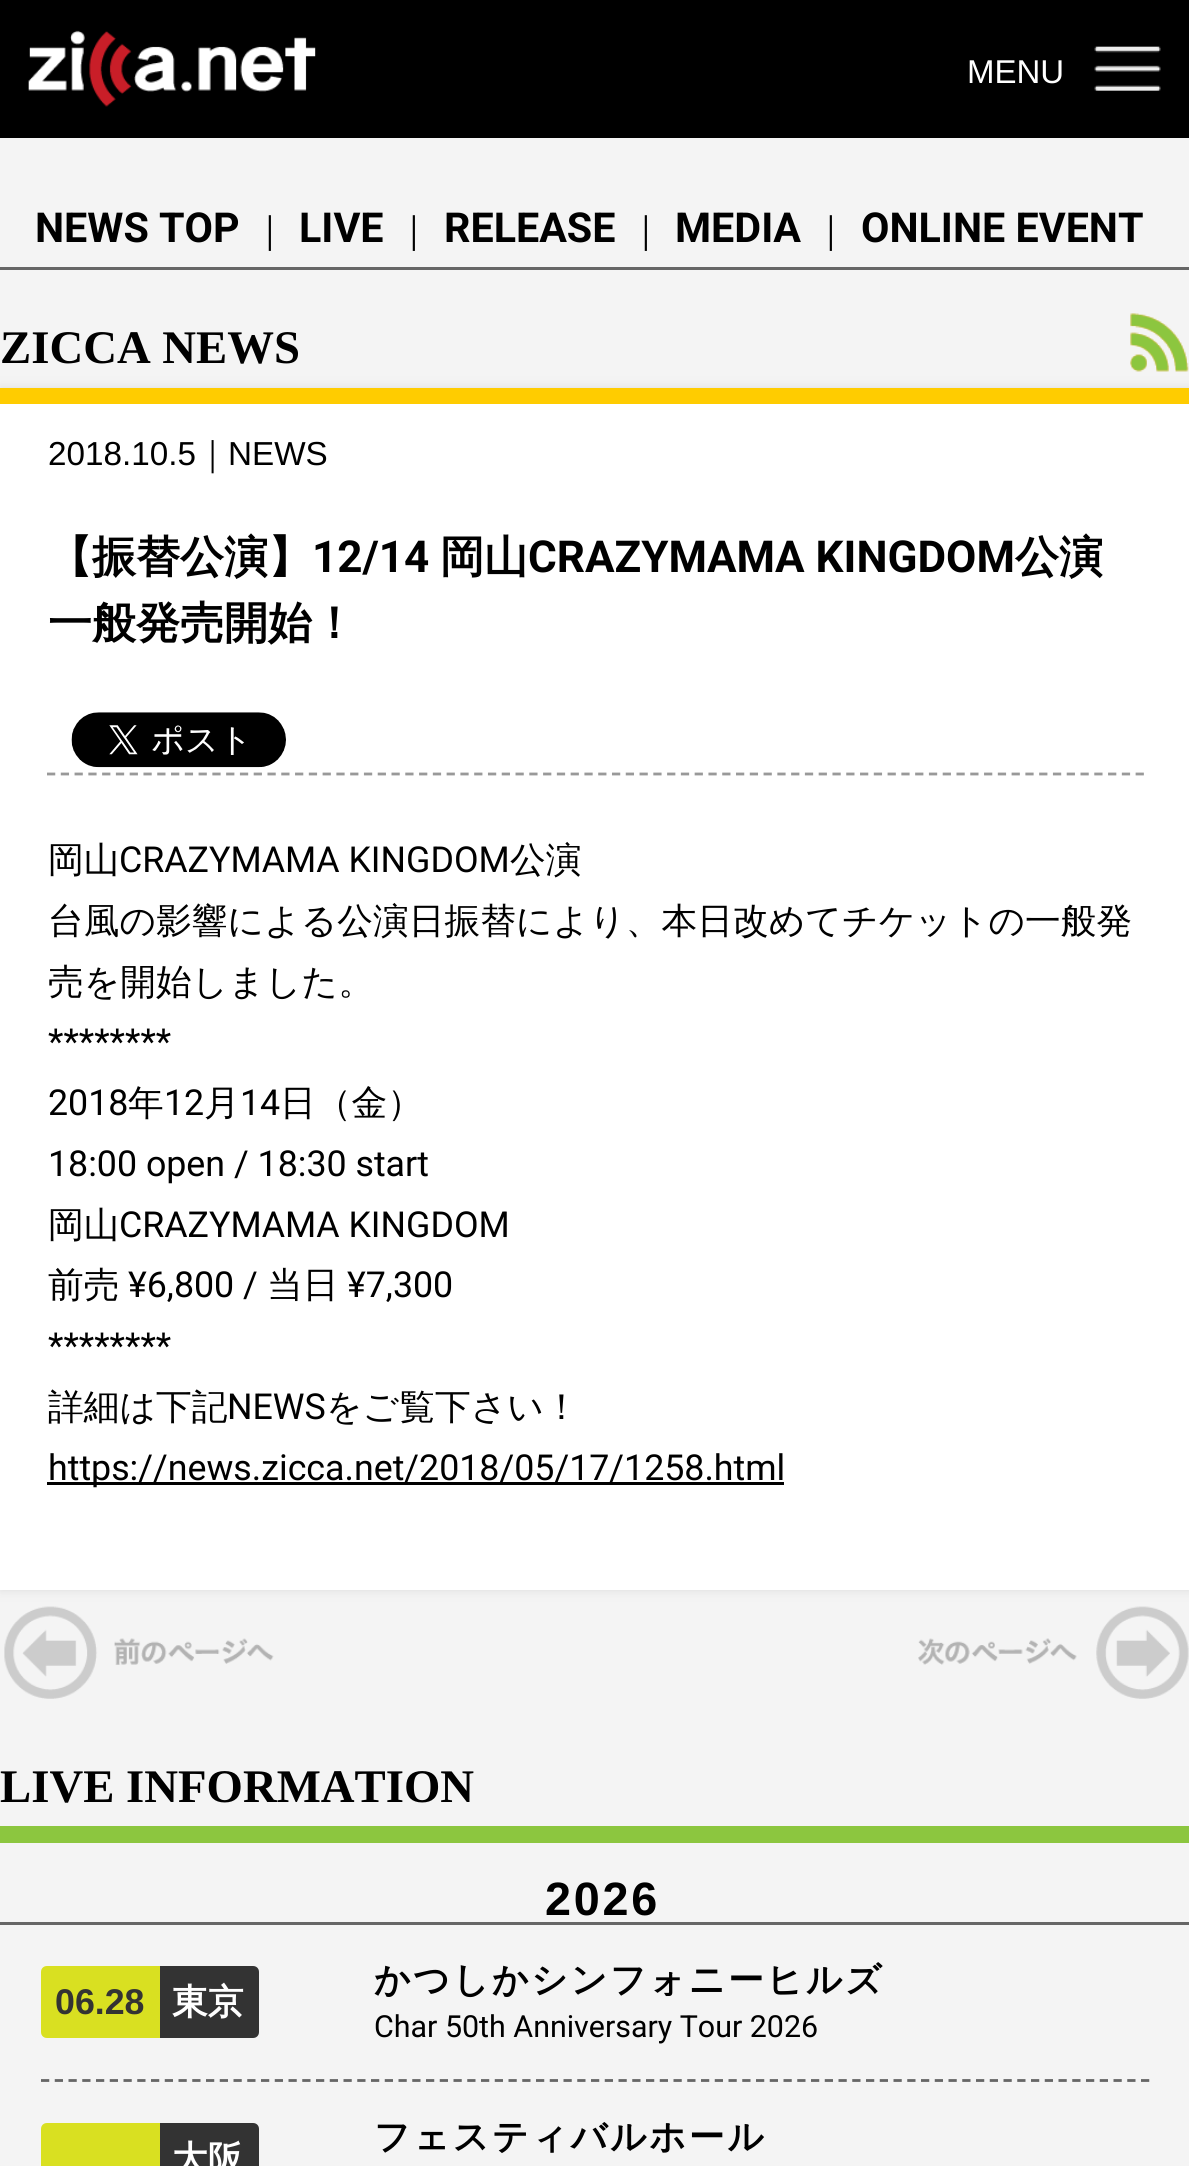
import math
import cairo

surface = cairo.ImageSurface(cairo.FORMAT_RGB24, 1189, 2166)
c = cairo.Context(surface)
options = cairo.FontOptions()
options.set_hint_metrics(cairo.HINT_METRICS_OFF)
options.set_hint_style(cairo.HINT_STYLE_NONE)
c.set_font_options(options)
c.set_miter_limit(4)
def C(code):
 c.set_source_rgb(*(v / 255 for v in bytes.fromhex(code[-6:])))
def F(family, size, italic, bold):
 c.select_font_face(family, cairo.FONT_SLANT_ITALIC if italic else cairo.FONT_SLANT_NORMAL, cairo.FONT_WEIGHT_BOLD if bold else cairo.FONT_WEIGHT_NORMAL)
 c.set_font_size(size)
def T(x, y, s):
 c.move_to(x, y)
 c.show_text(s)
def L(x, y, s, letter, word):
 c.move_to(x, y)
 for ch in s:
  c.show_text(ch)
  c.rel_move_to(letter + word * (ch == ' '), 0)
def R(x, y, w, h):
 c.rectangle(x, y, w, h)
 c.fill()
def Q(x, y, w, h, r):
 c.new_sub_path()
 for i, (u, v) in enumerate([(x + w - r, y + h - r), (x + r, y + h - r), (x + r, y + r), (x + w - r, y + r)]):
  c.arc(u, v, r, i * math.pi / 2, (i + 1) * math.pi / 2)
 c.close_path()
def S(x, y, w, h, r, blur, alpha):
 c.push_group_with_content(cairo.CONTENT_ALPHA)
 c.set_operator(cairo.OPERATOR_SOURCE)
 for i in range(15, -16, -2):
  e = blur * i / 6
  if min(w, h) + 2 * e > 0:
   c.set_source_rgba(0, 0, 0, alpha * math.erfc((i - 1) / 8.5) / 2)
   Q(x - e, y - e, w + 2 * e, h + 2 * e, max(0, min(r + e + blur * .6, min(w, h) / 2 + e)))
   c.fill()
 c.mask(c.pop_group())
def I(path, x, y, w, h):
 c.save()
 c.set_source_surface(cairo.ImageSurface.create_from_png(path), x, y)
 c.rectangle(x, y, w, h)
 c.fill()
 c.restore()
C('f4f4f4')
c.paint()
C('000000')
R(0,0,1189,138)
I('1.png',28,30,288,77)
F('Liberation Sans',33,0,0)
C('ffffff')
T(967,83,'MENU')
I('2.png',1094,46,67,45)
C('666666')
R(0,267,1189,3)
F('Roboto',41.25,0,1)
C('000000')
T(35,242,'NEWS TOP')
F('WenQuanYi Zen Hei Medium',35.75,0,0)
T(252,242,'｜')
F('Roboto',41.25,0,1)
T(299,242,'LIVE')
F('WenQuanYi Zen Hei Medium',35.75,0,0)
T(396,242,'｜')
F('Roboto',41.25,0,1)
T(444,242,'RELEASE')
F('WenQuanYi Zen Hei Medium',35.75,0,0)
T(628,242,'｜')
F('Roboto',41.25,0,1)
T(675,242,'MEDIA')
F('WenQuanYi Zen Hei Medium',35.75,0,0)
T(813,242,'｜')
F('Roboto',41.25,0,1)
T(861,242,'ONLINE EVENT')
F('Liberation Serif',46.75,0,1)
T(0,363,'ZICCA NEWS')
C('dddddd')
S(0,388,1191,1202,0,5.5,1)
I('3.png',1130,313,59,59)
C('ffffff')
R(0,404,1189,1186)
C('ffcc00')
R(0,388,1189,16)
c.new_path()
c.move_to(47,774)
c.line_to(1144,774)
C('999999')
c.set_line_width(2.8)
c.set_dash([8.25,5.53])
c.stroke()
F('Liberation Sans',33.25,0,0)
C('000000')
T(48,465,'2018.10.5')
F('WenQuanYi Zen Hei Medium',33.25,0,0)
T(196,465,'｜')
F('Liberation Sans',33.25,0,0)
T(228,465,'NEWS')
F('WenQuanYi Zen Hei',44,0,1)
T(48,572,'【振替公演】')
F('Roboto',44,0,1)
T(312,572,'12/14')
F('WenQuanYi Zen Hei',44,0,1)
T(440,572,'岡山')
F('Roboto',44,0,1)
T(528,572,'CRAZYMAMA KINGDOM')
F('WenQuanYi Zen Hei',44,0,1)
T(1015,572,'公演')
T(48,638,'一般発売開始！')
I('4.png',71,712,215,56)
F('WenQuanYi Zen Hei Medium',35.75,0,0)
T(48,872,'岡山')
F('Roboto',35.75,0,0)
T(119,872,'CRAZYMAMA KINGDOM')
F('WenQuanYi Zen Hei Medium',35.75,0,0)
T(510,872,'公演')
T(48,933,'台風の影響による公演日振替により、本日改めてチケットの一般発')
T(48,994,'売を開始しました。')
F('Roboto',35.75,0,0)
T(48,1054,'********')
T(48,1115,'2018')
F('WenQuanYi Zen Hei Medium',35.75,0,0)
T(128,1115,'年')
F('Roboto',35.75,0,0)
T(164,1115,'12')
F('WenQuanYi Zen Hei Medium',35.75,0,0)
T(204,1115,'月')
F('Roboto',35.75,0,0)
T(240,1115,'14')
F('WenQuanYi Zen Hei Medium',35.75,0,0)
T(280,1115,'日（金）')
F('Roboto',35.75,0,0)
T(48,1176,'18:00 open / 18:30 start')
F('WenQuanYi Zen Hei Medium',35.75,0,0)
T(48,1237,'岡山')
F('Roboto',35.75,0,0)
T(119,1237,'CRAZYMAMA KINGDOM')
F('WenQuanYi Zen Hei Medium',35.75,0,0)
T(48,1297,'前売')
F('Roboto',35.75,0,0)
T(128,1297,'¥6,800 /')
F('WenQuanYi Zen Hei Medium',35.75,0,0)
T(267,1297,'当日')
F('Roboto',35.75,0,0)
T(347,1297,'¥7,300')
T(48,1358,'********')
F('WenQuanYi Zen Hei Medium',35.75,0,0)
T(48,1419,'詳細は下記')
F('Roboto',35.75,0,0)
T(227,1419,'NEWS')
F('WenQuanYi Zen Hei Medium',35.75,0,0)
T(326,1419,'をご覧下さい！')
R(47,1482,737,3)
F('Roboto',35.75,0,0)
T(48,1480,'https://news.zicca.net/2018/05/17/1258.html')
I('5.png',4,1606,270,93)
I('6.png',918,1606,271,93)
I('7.png',1130,313,59,59)
F('Liberation Serif',46.75,0,1)
T(0,1802,'LIVE INFORMATION')
C('8cc63f')
R(0,1826,1189,17)
F('Liberation Sans',46.75,0,1)
C('000000')
L(545,1915,'2026',2.75,0)
C('666666')
R(0,1922,1189,3)
C('d9e021')
c.new_path()
c.move_to(47,1966)
c.line_to(160,1966)
c.line_to(160,2038)
c.line_to(47,2038)
c.curve_to(43.5,2038,41,2035.5,41,2032)
c.line_to(41,1972)
c.curve_to(41,1968.5,43.5,1966,47,1966)
c.close_path()
c.fill()
F('Liberation Sans',35.75,0,1)
C('333333')
T(55,2014,'06.28')
c.new_path()
c.move_to(160,1966)
c.line_to(253,1966)
c.curve_to(256.5,1966,259,1968.5,259,1972)
c.line_to(259,2032)
c.curve_to(259,2035.5,256.5,2038,253,2038)
c.line_to(160,2038)
c.close_path()
c.fill()
F('WenQuanYi Zen Hei',35.75,0,1)
C('ffffff')
T(172,2014,'東京')
C('000000')
L(374,1992,'かつしかシンフォニーヒルズ',2.75,0)
F('Roboto',30.4,0,0)
T(374,2037,'Char 50th Anniversary Tour 2026')
c.new_path()
c.move_to(41,2080.5)
c.line_to(1149.5,2080.5)
C('666666')
c.set_dash([8.25,5.5])
c.stroke()
C('d9e021')
c.new_path()
c.move_to(47,2123)
c.line_to(160,2123)
c.line_to(160,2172)
c.line_to(47,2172)
c.curve_to(43.5,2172,41,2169.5,41,2166)
c.line_to(41,2129)
c.curve_to(41,2125.5,43.5,2123,47,2123)
c.close_path()
c.fill()
C('333333')
c.new_path()
c.move_to(160,2123)
c.line_to(253,2123)
c.curve_to(256.5,2123,259,2125.5,259,2129)
c.line_to(259,2166)
c.curve_to(259,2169.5,256.5,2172,253,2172)
c.line_to(160,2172)
c.close_path()
c.fill()
F('WenQuanYi Zen Hei',35.75,0,1)
C('ffffff')
T(172,2171,'大阪')
C('000000')
L(374,2149,'フェスティバルホール',2.75,0)
surface.write_to_png('o.png')
